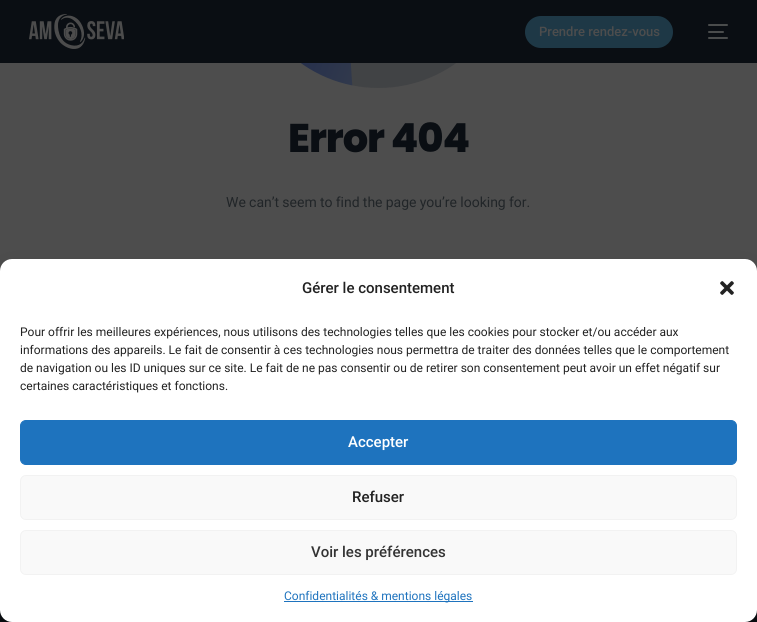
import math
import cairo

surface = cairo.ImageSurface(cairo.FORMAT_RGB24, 757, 622)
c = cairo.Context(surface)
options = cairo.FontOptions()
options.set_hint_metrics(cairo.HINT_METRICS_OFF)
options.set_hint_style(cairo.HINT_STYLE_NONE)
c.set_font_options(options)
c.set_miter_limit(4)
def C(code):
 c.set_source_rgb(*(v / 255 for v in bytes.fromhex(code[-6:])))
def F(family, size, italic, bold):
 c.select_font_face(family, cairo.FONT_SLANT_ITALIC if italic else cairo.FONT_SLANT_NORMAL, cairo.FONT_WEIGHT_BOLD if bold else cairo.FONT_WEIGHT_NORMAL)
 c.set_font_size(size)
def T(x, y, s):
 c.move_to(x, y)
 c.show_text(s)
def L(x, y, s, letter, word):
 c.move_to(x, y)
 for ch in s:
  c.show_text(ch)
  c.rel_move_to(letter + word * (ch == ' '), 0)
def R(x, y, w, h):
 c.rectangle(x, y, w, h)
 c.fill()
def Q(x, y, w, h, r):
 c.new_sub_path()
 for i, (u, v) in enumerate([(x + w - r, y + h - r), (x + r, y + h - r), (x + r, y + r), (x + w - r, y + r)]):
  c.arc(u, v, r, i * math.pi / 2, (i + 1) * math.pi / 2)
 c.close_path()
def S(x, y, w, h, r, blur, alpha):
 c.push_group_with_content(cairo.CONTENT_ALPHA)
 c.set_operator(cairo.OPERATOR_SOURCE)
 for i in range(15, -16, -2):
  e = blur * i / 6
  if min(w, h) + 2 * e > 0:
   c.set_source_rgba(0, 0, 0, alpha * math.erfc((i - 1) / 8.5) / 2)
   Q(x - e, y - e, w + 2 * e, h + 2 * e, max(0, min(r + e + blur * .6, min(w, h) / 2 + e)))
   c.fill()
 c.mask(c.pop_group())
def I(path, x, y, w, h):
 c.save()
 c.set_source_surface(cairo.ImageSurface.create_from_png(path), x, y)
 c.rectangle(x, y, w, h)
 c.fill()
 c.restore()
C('4d4d4d')
c.paint()
C('0a0e13')
R(0,0,757,63)
I('1.png',29,14,95,35)
C('1e3846')
Q(525,16,148,32,16)
c.fill()
F('Roboto Medium',13,0,0)
C('4d4d4d')
T(539,36,'Prendre rendez-vous')
C('4a4c4c')
Q(708,24,20,2,1)
c.fill()
Q(708,31,16,2,1)
c.fill()
Q(708,37,20,2,1)
c.fill()
I('2.png',301,63,155,25)
F('Poppins ExtraBold',40,0,0)
C('0a0e13')
L(288,152,'Error 404',-1,0)
F('Roboto',14,0,0)
C('212528')
L(226,207,'We can’t seem to find the page you’re looking for.',0,-.25)
C('0a0e13')
R(0,610,757,12)
C('000000')
S(0,265,757,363,12,3,.23)
S(0,269,757,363,12,10,.19)
C('ffffff')
Q(0,259,757,363,12)
c.fill()
F('Roboto Medium',15,0,0)
C('222222')
T(302,293,'Gérer le consentement')
I('3.png',720,281,14,14)
F('Roboto',12,0,0)
T(20,336,'Pour offrir les meilleures expériences, nous utilisons des technologies telles que les cookies pour stocker et/ou accéder aux')
T(20,354,'informations des appareils. Le fait de consentir à ces technologies nous permettra de traiter des données telles que le comportement')
T(20,372,'de navigation ou les ID uniques sur ce site. Le fait de ne pas consentir ou de retirer son consentement peut avoir un effet négatif sur')
T(20,390,'certaines caractéristiques et fonctions.')
C('1e73be')
Q(20.5,420.5,716,44,5.5)
c.fill_preserve()
c.set_line_width(1)
c.stroke()
F('Roboto Medium',15,0,0)
C('ffffff')
T(348,447,'Accepter')
C('f9f9f9')
Q(20.5,475.5,716,44,5.5)
c.fill_preserve()
C('f2f2f2')
c.stroke()
C('222222')
T(352,502,'Refuser')
C('f9f9f9')
Q(20.5,530.5,716,44,5.5)
c.fill_preserve()
C('f2f2f2')
c.stroke()
C('333333')
T(311,557,'Voir les préférences')
C('1e73be')
R(284,601,189,1)
F('Roboto',12,0,0)
T(284,600,'Confidentialités & mentions légales')
surface.write_to_png('o.png')
